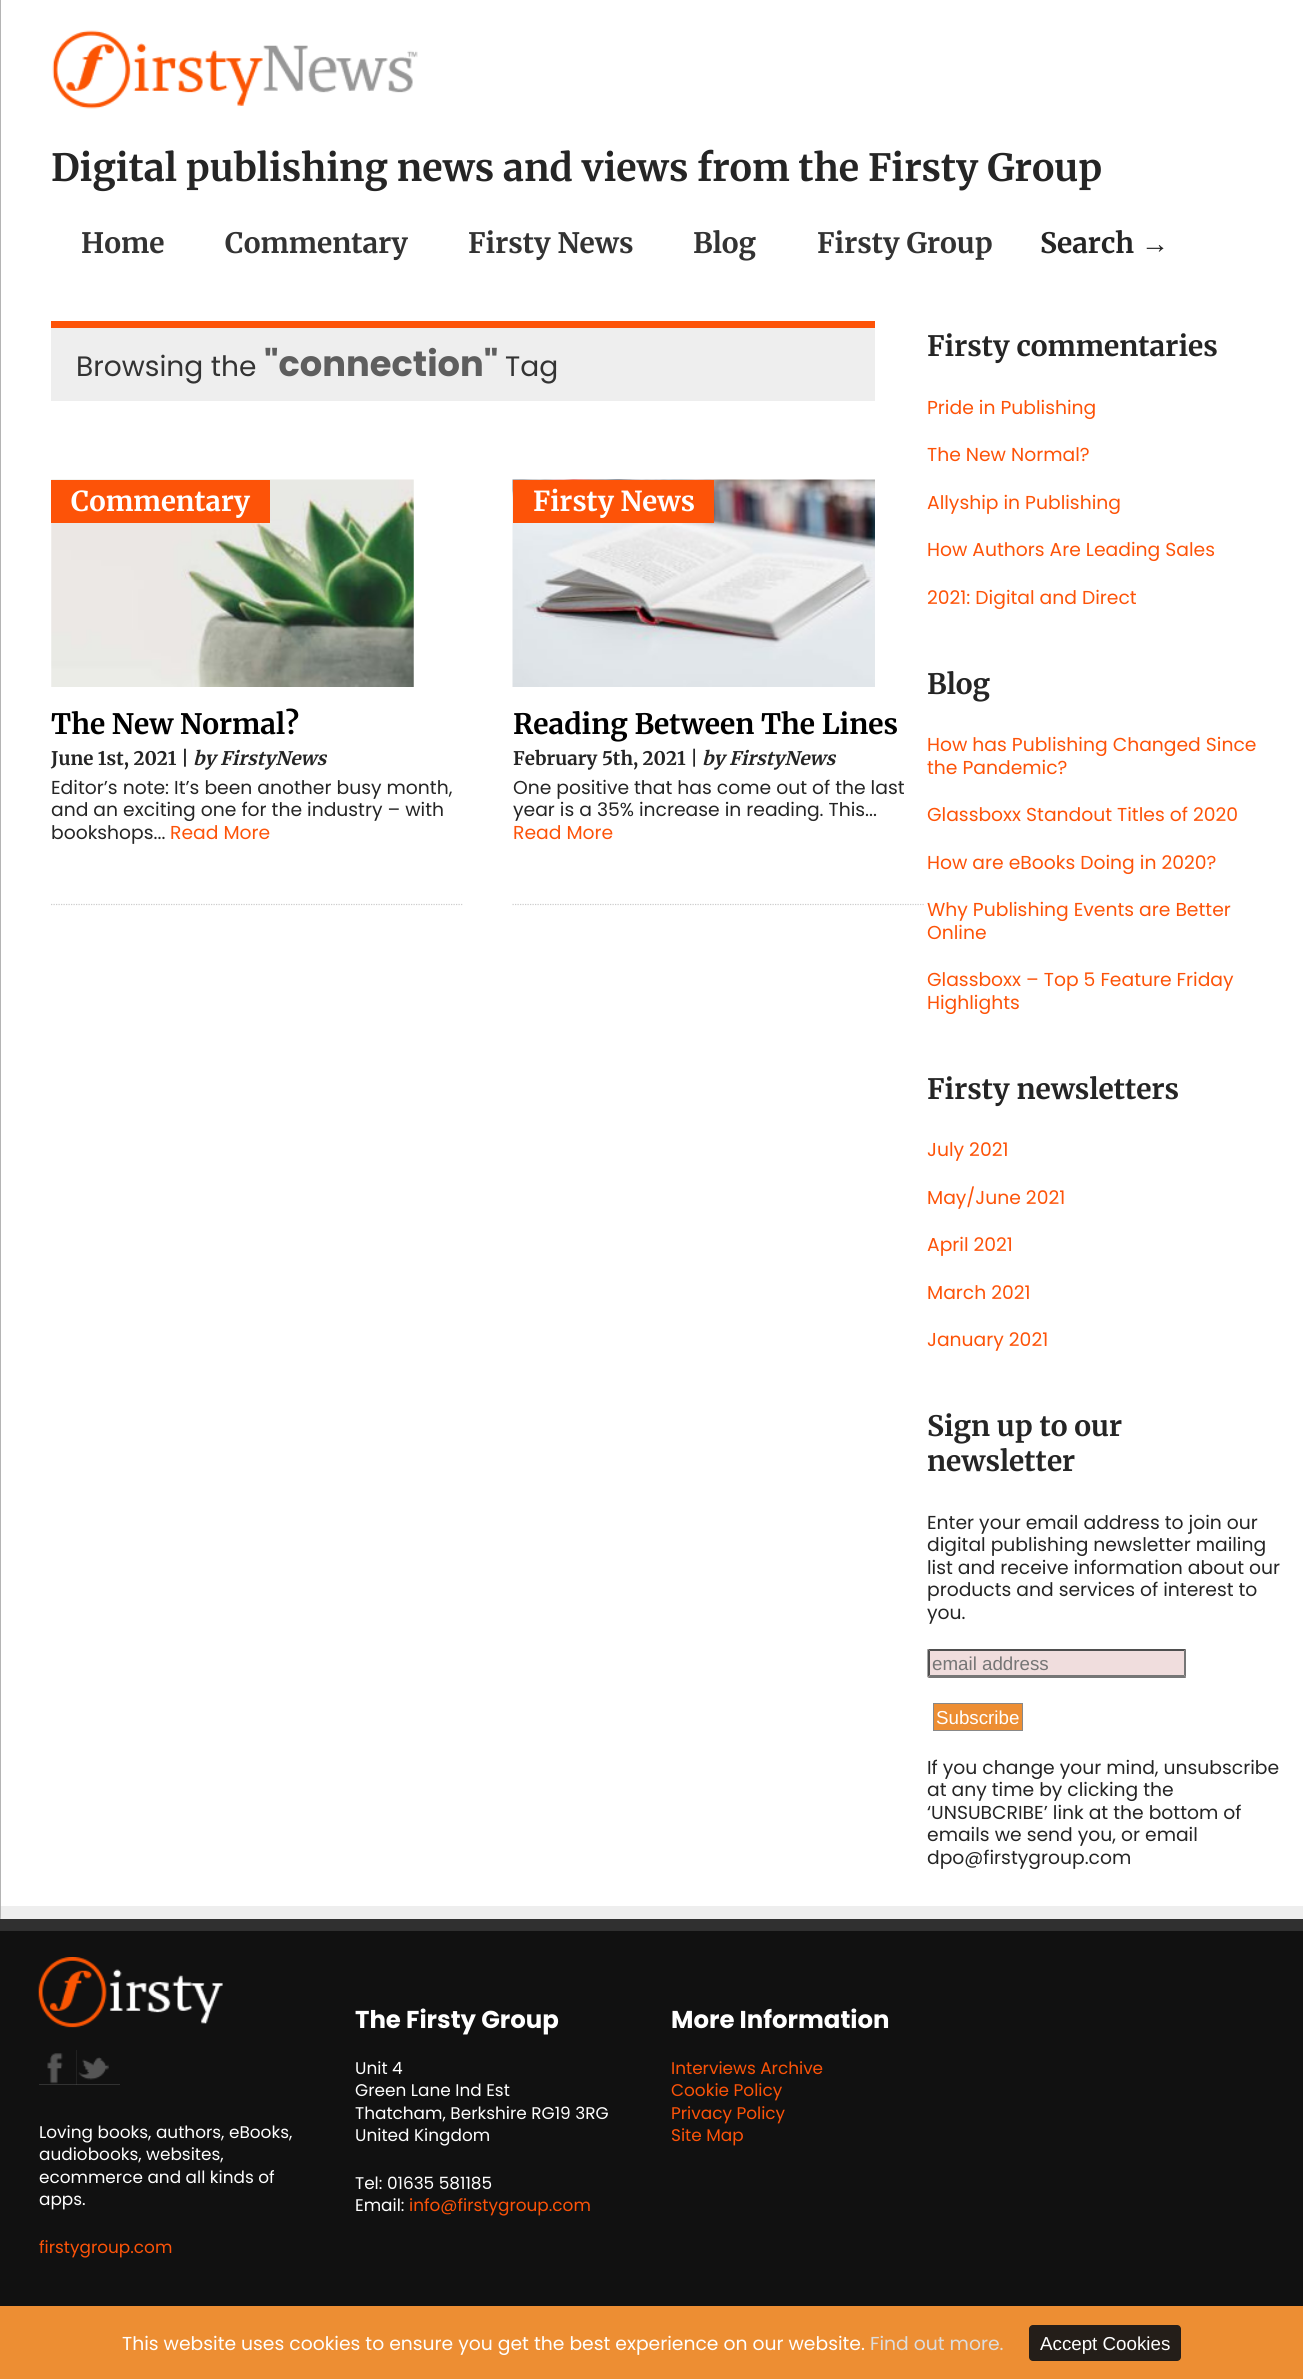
import math
import cairo

surface = cairo.ImageSurface(cairo.FORMAT_RGB24, 1303, 2379)
c = cairo.Context(surface)
options = cairo.FontOptions()
options.set_hint_metrics(cairo.HINT_METRICS_OFF)
options.set_hint_style(cairo.HINT_STYLE_NONE)
c.set_font_options(options)
c.set_miter_limit(4)
def C(code):
 c.set_source_rgb(*(v / 255 for v in bytes.fromhex(code[-6:])))
def F(family, size, italic, bold):
 c.select_font_face(family, cairo.FONT_SLANT_ITALIC if italic else cairo.FONT_SLANT_NORMAL, cairo.FONT_WEIGHT_BOLD if bold else cairo.FONT_WEIGHT_NORMAL)
 c.set_font_size(size)
def T(x, y, s):
 c.move_to(x, y)
 c.show_text(s)
def R(x, y, w, h):
 c.rectangle(x, y, w, h)
 c.fill()
def Q(x, y, w, h, r):
 c.new_sub_path()
 for i, (u, v) in enumerate([(x + w - r, y + h - r), (x + r, y + h - r), (x + r, y + r), (x + w - r, y + r)]):
  c.arc(u, v, r, i * math.pi / 2, (i + 1) * math.pi / 2)
 c.close_path()
def S(x, y, w, h, r, blur, alpha):
 c.push_group_with_content(cairo.CONTENT_ALPHA)
 c.set_operator(cairo.OPERATOR_SOURCE)
 for i in range(15, -16, -2):
  e = blur * i / 6
  if min(w, h) + 2 * e > 0:
   c.set_source_rgba(0, 0, 0, alpha * math.erfc((i - 1) / 8.5) / 2)
   Q(x - e, y - e, w + 2 * e, h + 2 * e, max(0, min(r + e + blur * .6, min(w, h) / 2 + e)))
   c.fill()
 c.mask(c.pop_group())
def I(path, x, y, w, h):
 c.save()
 c.set_source_surface(cairo.ImageSurface.create_from_png(path), x, y)
 c.rectangle(x, y, w, h)
 c.fill()
 c.restore()
C('f0f0f0')
c.paint()
C('000000')
S(1,-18,1302,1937,0,6,.5)
C('ffffff')
R(1,0,1302,1919)
I('1.png',52,30,366,79)
F('Merriweather Light',37.5,0,0)
C('252525')
T(51,181,'Digital publishing news and views from the Firsty Group')
F('Merriweather Light',28.1,0,0)
C('333333')
T(81,253,'Home')
T(225,253,'Commentary')
T(468,253,'Firsty News')
T(693,253,'Blog')
T(817,253,'Firsty Group')
C('252525')
T(1040,253,'Search')
F('Liberation Serif',28.1,0,0)
T(1141,253,'→')
C('eeeeee')
R(51,328,824,73)
C('fd5308')
R(51,321,824,7)
F('Poppins',28.1,0,0)
C('333333')
T(76,376,'Browsing the')
F('Poppins',35.25,0,1)
C('5e5e5e')
T(264,376,'"connection"')
F('Poppins',28.1,0,0)
C('333333')
T(505,376,'Tag')
c.new_path()
c.move_to(51,904.5)
c.line_to(462.5,904.5)
C('cccccc')
c.set_line_width(1.2)
c.set_dash([1.25,1.25])
c.stroke()
I('2.png',51,479,363,208)
C('fd5308')
R(51,480,219,43)
F('Merriweather Light',27.5,0,0)
C('ffffff')
T(71,511,'Commentary')
F('Merriweather Light',28.1,0,0)
C('000000')
T(51,734,'The New Normal?')
F('Merriweather Light',18.75,0,0)
C('252525')
T(51,765,'June 1st, 2021 |')
F('Merriweather Light',18.75,1,0)
T(193,765,'by FirstyNews')
F('Poppins',18.75,0,0)
T(51,794,'Editor’s note: It’s been another busy month,')
T(51,816,'and an exciting one for the industry – with')
T(51,839,'bookshops...')
C('fd5308')
T(170,839,'Read More')
c.new_path()
c.move_to(512.5,904.5)
c.line_to(925,904.5)
C('cccccc')
c.stroke()
I('3.png',512,479,363,208)
C('fd5308')
R(513,480,201,43)
F('Merriweather Light',27.5,0,0)
C('ffffff')
T(533,511,'Firsty News')
F('Merriweather Light',28.1,0,0)
C('000000')
T(513,734,'Reading Between The Lines')
F('Merriweather Light',18.75,0,0)
C('252525')
T(513,765,'February 5th, 2021 |')
F('Merriweather Light',18.75,1,0)
T(702,765,'by FirstyNews')
F('Poppins',18.75,0,0)
T(513,794,'One positive that has come out of the last')
T(513,816,'year is a 35% increase in reading. This...')
C('fd5308')
T(513,839,'Read More')
F('Merriweather Light',28.1,0,0)
C('252525')
T(927,356,'Firsty commentaries')
F('Poppins',18.75,0,0)
C('fd5308')
T(927,414,'Pride in Publishing')
T(927,461,'The New Normal?')
T(927,509,'Allyship in Publishing')
T(927,556,'How Authors Are Leading Sales')
T(927,604,'2021: Digital and Direct')
F('Merriweather Light',28.1,0,0)
C('252525')
T(927,694,'Blog')
F('Poppins',18.75,0,0)
C('fd5308')
T(927,751,'How has Publishing Changed Since')
T(927,774,'the Pandemic?')
T(927,821,'Glassboxx Standout Titles of 2020')
T(927,869,'How are eBooks Doing in 2020?')
T(927,916,'Why Publishing Events are Better')
T(927,939,'Online')
T(927,986,'Glassboxx – Top 5 Feature Friday')
T(927,1009,'Highlights')
F('Merriweather Light',28.1,0,0)
C('252525')
T(927,1099,'Firsty newsletters')
F('Poppins',18.75,0,0)
C('fd5308')
T(927,1156,'July 2021')
T(927,1204,'May/June 2021')
T(927,1251,'April 2021')
T(927,1299,'March 2021')
T(927,1346,'January 2021')
F('Merriweather Light',28.1,0,0)
C('252525')
T(927,1436,'Sign up to our')
T(927,1471,'newsletter')
F('Poppins',18.75,0,0)
T(927,1529,'Enter your email address to join our')
T(927,1551,'digital publishing newsletter mailing')
T(927,1574,'list and receive information about our')
T(927,1596,'products and services of interest to')
T(927,1619,'you.')
C('f0dddd')
R(928,1649,258,29)
C('4f4f4f')
c.new_path()
c.move_to(928,1649)
c.line_to(1186,1649)
c.line_to(1184,1651)
c.line_to(930,1651)
c.close_path()
c.fill()
C('767676')
c.new_path()
c.move_to(1186,1649)
c.line_to(1186,1677.5)
c.line_to(1184,1675)
c.line_to(1184,1651)
c.close_path()
c.fill()
c.new_path()
c.move_to(1186,1678)
c.line_to(928,1678)
c.line_to(930,1675)
c.line_to(1184,1675)
c.close_path()
c.fill()
C('4f4f4f')
c.new_path()
c.move_to(927.5,1677.5)
c.line_to(927.5,1649)
c.line_to(930,1651)
c.line_to(930,1675)
c.close_path()
c.fill()
F('Liberation Sans',18.75,0,0)
C('757575')
T(932,1670,'email address')
C('ed8e33')
c.rectangle(933.5,1703.5,89,27)
c.fill_preserve()
C('888888')
c.set_line_width(1)
c.set_dash([])
c.stroke()
C('ffffff')
T(936,1724,'Subscribe')
F('Poppins',18.75,0,0)
C('252525')
T(927,1774,'If you change your mind, unsubscribe')
T(927,1796,'at any time by clicking the')
T(927,1819,'‘UNSUBCRIBE’ link at the bottom of')
T(927,1841,'emails we send you, or email')
T(927,1864,'dpo@firstygroup.com')
C('111111')
R(0,1919,1303,387)
c.set_source_rgba(0.667,0.667,0.667,0.2)
R(0,1906,1303,25)
F('Poppins',24.4,0,1)
C('ffffff')
T(355,2028,'The Firsty Group')
F('Poppins',16.9,0,0)
T(355,2074,'Unit 4')
T(355,2096,'Green Lane Ind Est')
T(355,2119,'Thatcham, Berkshire RG19 3RG')
T(355,2141,'United Kingdom')
T(355,2189,'Tel: 01635 581185')
T(355,2211,'Email:')
C('fd5308')
T(409,2211,'info@firstygroup.com')
F('Poppins',24.4,0,1)
C('ffffff')
T(671,2028,'More Information')
F('Poppins',16.9,0,0)
C('fd5308')
T(671,2074,'Interviews Archive')
T(671,2096,'Cookie Policy')
T(671,2119,'Privacy Policy')
T(671,2141,'Site Map')
I('4.png',38,1957,185,71)
C('555555')
R(39,2053,37,32)
I('5.png',39,2050,37,35)
R(76,2050,44,35)
I('6.png',76,2050,44,35)
C('ffffff')
T(39,2138,'Loving books, authors, eBooks,')
T(39,2160,'audiobooks, websites,')
T(39,2183,'ecommerce and all kinds of')
T(39,2205,'apps.')
C('fd5308')
T(39,2253,'firstygroup.com')
C('ed8e33')
R(0,2306,1303,73)
F('Poppins',18.75,0,0)
C('ffffff')
T(122,2350,'This website uses cookies to ensure you get the best experience on our website.')
C('dddddd')
T(870,2350,'Find out more.')
C('241e19')
Q(1029,2325,152,36,4)
c.fill()
F('Liberation Sans',18.75,0,0)
C('ffffff')
T(1040,2350,'Accept Cookies')
surface.write_to_png('o.png')
